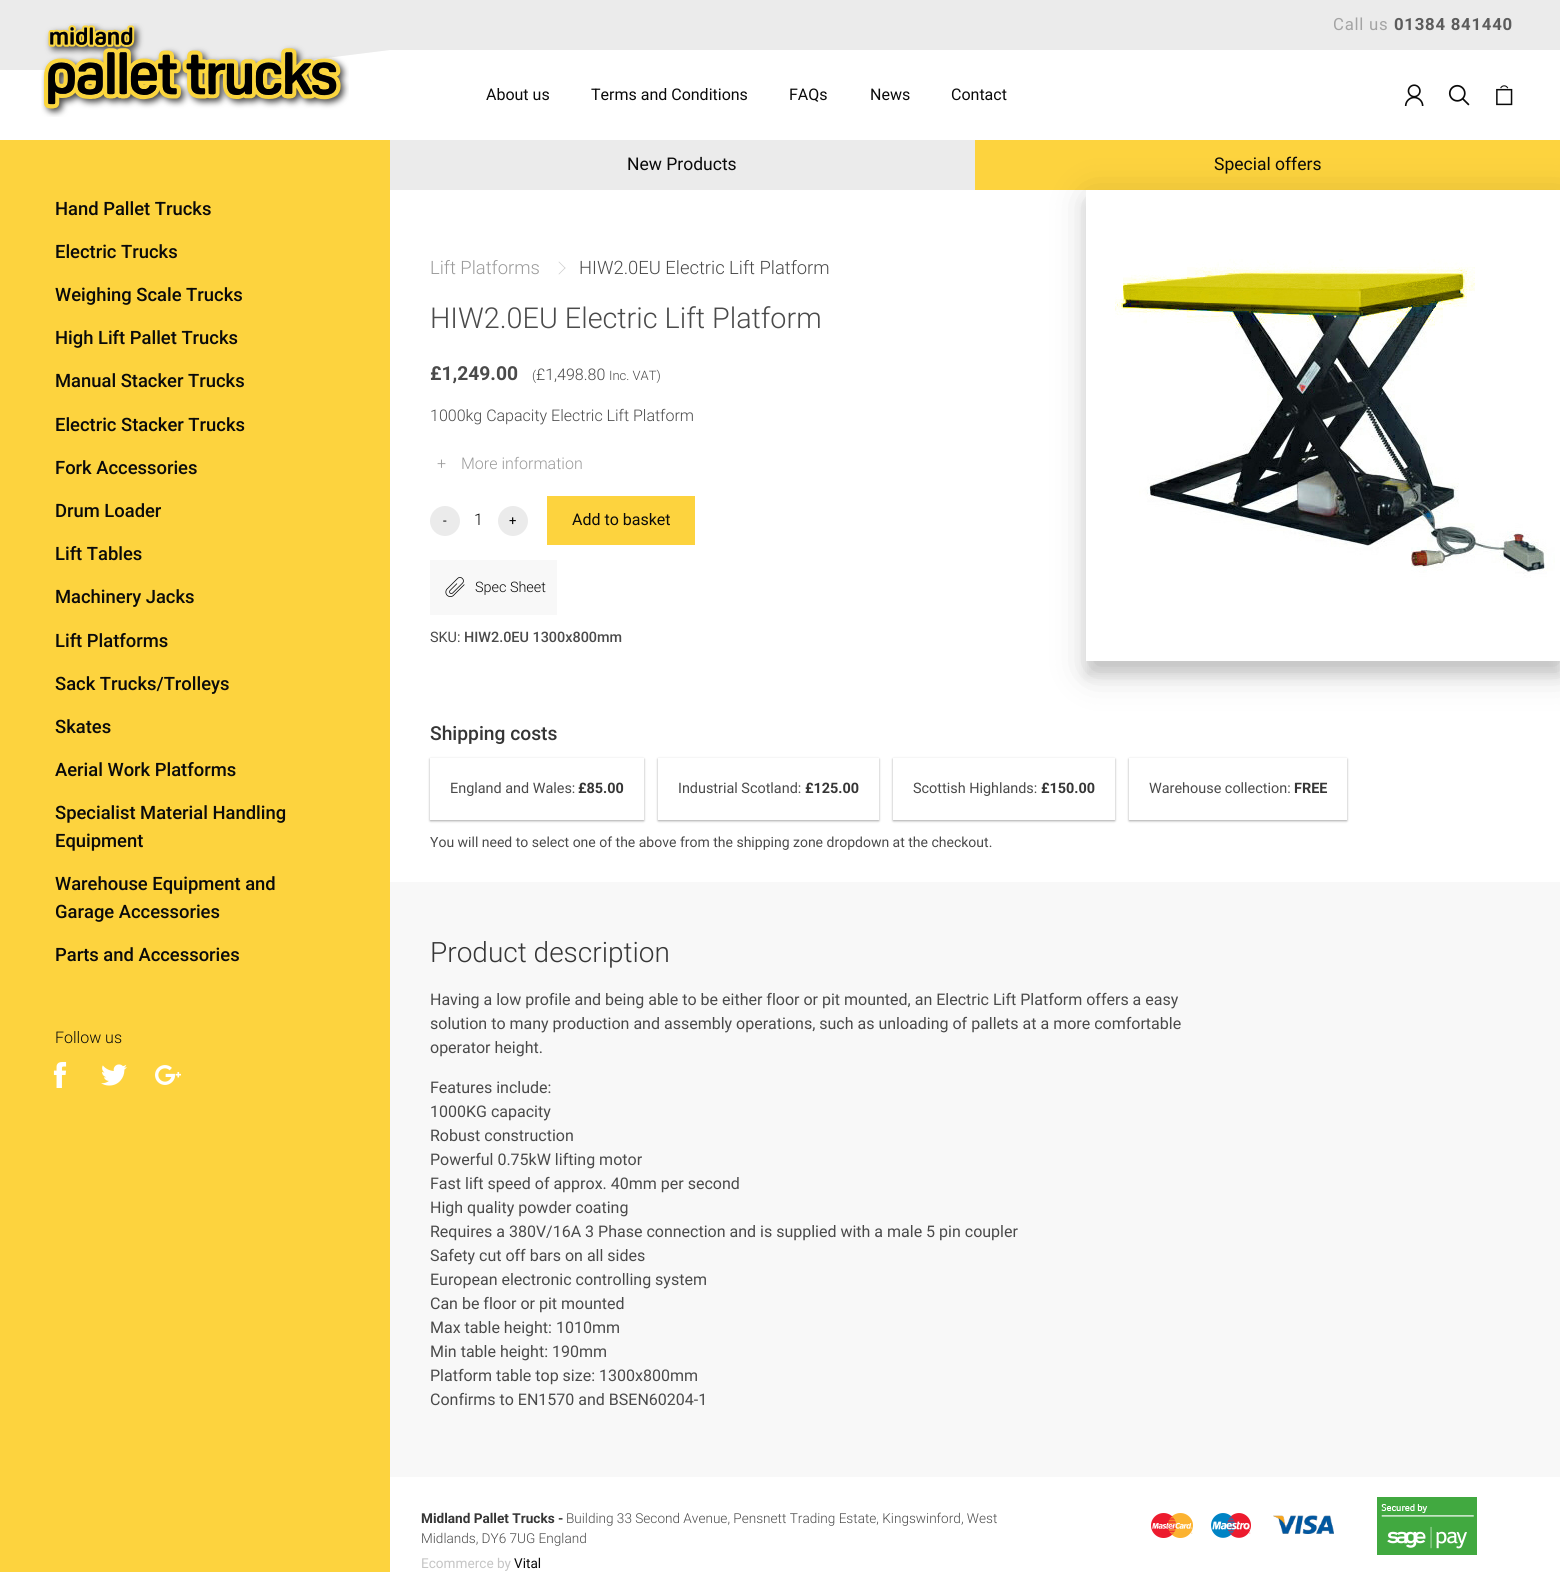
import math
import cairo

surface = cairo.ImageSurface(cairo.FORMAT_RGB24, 1560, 1572)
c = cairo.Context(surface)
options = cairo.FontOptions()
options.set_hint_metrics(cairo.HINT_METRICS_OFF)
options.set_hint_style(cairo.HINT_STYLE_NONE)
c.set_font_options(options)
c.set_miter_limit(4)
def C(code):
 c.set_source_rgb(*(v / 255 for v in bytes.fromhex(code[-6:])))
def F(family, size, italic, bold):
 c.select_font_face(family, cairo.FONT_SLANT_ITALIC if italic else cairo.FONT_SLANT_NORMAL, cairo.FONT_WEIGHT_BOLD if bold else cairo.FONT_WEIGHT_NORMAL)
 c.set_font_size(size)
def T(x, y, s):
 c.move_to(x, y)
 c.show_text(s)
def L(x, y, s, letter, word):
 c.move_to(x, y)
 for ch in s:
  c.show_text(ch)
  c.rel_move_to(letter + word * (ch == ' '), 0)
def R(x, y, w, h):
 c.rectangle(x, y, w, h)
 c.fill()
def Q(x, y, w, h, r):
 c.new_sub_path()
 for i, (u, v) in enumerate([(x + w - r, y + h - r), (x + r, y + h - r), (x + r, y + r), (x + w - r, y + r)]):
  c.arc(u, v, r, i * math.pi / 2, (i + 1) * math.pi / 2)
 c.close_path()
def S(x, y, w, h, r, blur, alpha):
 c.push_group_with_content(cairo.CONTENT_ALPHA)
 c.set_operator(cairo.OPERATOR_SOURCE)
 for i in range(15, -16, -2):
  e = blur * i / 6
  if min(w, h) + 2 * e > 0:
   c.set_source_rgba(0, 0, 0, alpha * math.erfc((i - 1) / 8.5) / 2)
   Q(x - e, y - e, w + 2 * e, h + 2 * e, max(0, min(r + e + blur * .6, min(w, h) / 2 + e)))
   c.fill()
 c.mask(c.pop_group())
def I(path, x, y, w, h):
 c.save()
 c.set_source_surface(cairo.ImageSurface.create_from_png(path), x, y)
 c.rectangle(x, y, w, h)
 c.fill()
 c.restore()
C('fdd33e')
c.paint()
C('ffffff')
R(0,50,1560,90)
C('ebebeb')
R(0,0,390,70)
C('ffffff')
R(238,50,152,20)
C('ebebeb')
c.new_path()
c.move_to(230,50)
c.line_to(390,50)
c.line_to(230,70)
c.close_path()
c.fill()
I('1.png',41,23,308,94)
R(390,0,1170,50)
F('Roboto',16.75,0,0)
C('a4a4a4')
L(1333,30,'Call us',.75,0)
F('Roboto',16.75,0,1)
C('5c5c5c')
L(1394,30,'01384 841440',.75,0)
F('Roboto',16,0,0)
C('0a0a0a')
T(486,100,'About us')
T(591,100,'Terms and Conditions')
T(789,100,'FAQs')
T(870,100,'News')
T(951,100,'Contact')
I('2.png',1404,84,20,22)
I('3.png',1448,84,22,22)
I('4.png',1496,85,17,21)
F('Roboto Medium',18.4,0,0)
T(55,215,'Hand Pallet Trucks')
T(55,258,'Electric Trucks')
T(55,301,'Weighing Scale Trucks')
T(55,344,'High Lift Pallet Trucks')
T(55,387,'Manual Stacker Trucks')
T(55,431,'Electric Stacker Trucks')
T(55,474,'Fork Accessories')
T(55,517,'Drum Loader')
T(55,560,'Lift Tables')
T(55,603,'Machinery Jacks')
T(55,647,'Lift Platforms')
T(55,690,'Sack Trucks/Trolleys')
T(55,733,'Skates')
T(55,776,'Aerial Work Platforms')
T(55,819,'Specialist Material Handling')
T(55,847,'Equipment')
T(55,890,'Warehouse Equipment and')
T(55,918,'Garage Accessories')
T(55,961,'Parts and Accessories')
F('Roboto Light',16,0,0)
T(55,1043,'Follow us')
I('5.png',53,1062,14,26)
I('6.png',101,1064,26,22)
I('7.png',155,1065,26,20)
C('f8f8f8')
R(390,882,1170,595)
C('ebebeb')
R(390,140,585,50)
F('Roboto',17.5,0,0)
C('0a0a0a')
T(627,170,'New Products')
T(1214,170,'Special offers')
C('ffffff')
R(390,190,1170,692)
F('Roboto Light',18.4,0,0)
C('9b9b9b')
T(430,274,'Lift Platforms')
C('cccccc')
c.new_path()
c.move_to(565,268.5)
c.line_to(558.5,262)
c.line_to(559,261.5)
c.line_to(565.5,268)
c.close_path()
c.fill()
c.new_path()
c.move_to(559,274.5)
c.line_to(558.5,274)
c.line_to(565,267.5)
c.line_to(565.5,268)
c.close_path()
c.fill()
C('4a4a4a')
T(579,274,'HIW2.0EU Electric Lift Platform')
F('Roboto Light',28.75,0,0)
T(430,328,'HIW2.0EU Electric Lift Platform')
F('Roboto',19.25,0,1)
T(430,380,'£1,249.00')
F('Roboto Light',13,0,0)
T(532,380,'(')
F('Roboto Light',16,0,0)
T(536,380,'£1,498.80')
F('Roboto Light',13,0,0)
T(609,380,'Inc. VAT)')
F('Roboto Light',16,0,0)
T(430,421,'1000kg Capacity Electric Lift Platform')
C('9b9b9b')
T(437,469,'+')
T(461,469,'More information')
C('ebebeb')
c.new_path()
c.arc(445,521,15,0,2 * math.pi)
c.fill()
F('Roboto',13,0,0)
C('000000')
T(443,525,'-')
F('Roboto Light',16,0,0)
T(474,525,'1')
C('ebebeb')
c.new_path()
c.arc(513,521,15,0,2 * math.pi)
c.fill()
F('Roboto',13,0,0)
C('000000')
T(509,525,'+')
C('fdd33e')
R(547,496,148,49)
F('Roboto',16,0,0)
C('0a0a0a')
T(572,525,'Add to basket')
C('f8f8f8')
R(430,560,127,55)
I('8.png',445,577,20,20)
F('Roboto Light',14.4,0,0)
C('0a0a0a')
T(475,592,'Spec Sheet')
F('Roboto',14.4,0,0)
C('4a4a4a')
T(430,642,'SKU:')
F('Roboto Medium',14.4,0,0)
T(464,642,'HIW2.0EU 1300x800mm')
c.save()
c.set_fill_rule(cairo.FILL_RULE_EVEN_ODD)
c.new_path()
c.move_to(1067,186)
c.line_to(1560,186)
c.line_to(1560,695)
c.line_to(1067,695)
c.close_path()
c.move_to(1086,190)
c.line_to(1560,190)
c.line_to(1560,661)
c.line_to(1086,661)
c.close_path()
c.clip()
C('000000')
S(1086,205,474,471,0,6,.1)
c.restore()
c.save()
c.set_fill_rule(cairo.FILL_RULE_EVEN_ODD)
c.new_path()
c.move_to(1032,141)
c.line_to(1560,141)
c.line_to(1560,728)
c.line_to(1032,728)
c.close_path()
c.move_to(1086,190)
c.line_to(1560,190)
c.line_to(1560,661)
c.line_to(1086,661)
c.close_path()
c.clip()
C('000000')
S(1090,199,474,471,0,19,.2)
c.restore()
I('9.png',1115,259,440,319)
F('Roboto Medium',19.25,0,0)
C('363636')
T(430,740,'Shipping costs')
c.save()
c.set_fill_rule(cairo.FILL_RULE_EVEN_ODD)
c.new_path()
c.move_to(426,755)
c.line_to(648,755)
c.line_to(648,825)
c.line_to(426,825)
c.close_path()
c.move_to(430,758)
c.line_to(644,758)
c.line_to(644,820)
c.line_to(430,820)
c.close_path()
c.clip()
C('000000')
S(430,759,214,62,0,1,.24)
c.restore()
c.save()
c.set_fill_rule(cairo.FILL_RULE_EVEN_ODD)
c.new_path()
c.move_to(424,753)
c.line_to(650,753)
c.line_to(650,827)
c.line_to(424,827)
c.close_path()
c.move_to(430,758)
c.line_to(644,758)
c.line_to(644,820)
c.line_to(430,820)
c.close_path()
c.clip()
C('000000')
S(430,759,214,62,0,1.5,.12)
c.restore()
F('Roboto',14.4,0,0)
C('4a4a4a')
T(450,793,'England and Wales:')
F('Roboto',14.4,0,1)
C('363636')
T(578,793,'£85.00')
c.save()
c.set_fill_rule(cairo.FILL_RULE_EVEN_ODD)
c.new_path()
c.move_to(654,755)
c.line_to(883,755)
c.line_to(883,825)
c.line_to(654,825)
c.close_path()
c.move_to(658,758)
c.line_to(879,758)
c.line_to(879,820)
c.line_to(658,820)
c.close_path()
c.clip()
C('000000')
S(658,759,221,62,0,1,.24)
c.restore()
c.save()
c.set_fill_rule(cairo.FILL_RULE_EVEN_ODD)
c.new_path()
c.move_to(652,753)
c.line_to(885,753)
c.line_to(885,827)
c.line_to(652,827)
c.close_path()
c.move_to(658,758)
c.line_to(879,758)
c.line_to(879,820)
c.line_to(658,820)
c.close_path()
c.clip()
C('000000')
S(658,759,221,62,0,1.5,.12)
c.restore()
F('Roboto',14.4,0,0)
C('4a4a4a')
T(678,793,'Industrial Scotland:')
F('Roboto',14.4,0,1)
C('363636')
T(805,793,'£125.00')
c.save()
c.set_fill_rule(cairo.FILL_RULE_EVEN_ODD)
c.new_path()
c.move_to(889,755)
c.line_to(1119,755)
c.line_to(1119,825)
c.line_to(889,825)
c.close_path()
c.move_to(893,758)
c.line_to(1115,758)
c.line_to(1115,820)
c.line_to(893,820)
c.close_path()
c.clip()
C('000000')
S(893,759,222,62,0,1,.24)
c.restore()
c.save()
c.set_fill_rule(cairo.FILL_RULE_EVEN_ODD)
c.new_path()
c.move_to(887,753)
c.line_to(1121,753)
c.line_to(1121,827)
c.line_to(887,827)
c.close_path()
c.move_to(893,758)
c.line_to(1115,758)
c.line_to(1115,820)
c.line_to(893,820)
c.close_path()
c.clip()
C('000000')
S(893,759,222,62,0,1.5,.12)
c.restore()
F('Roboto',14.4,0,0)
C('4a4a4a')
T(913,793,'Scottish Highlands:')
F('Roboto',14.4,0,1)
C('363636')
T(1041,793,'£150.00')
c.save()
c.set_fill_rule(cairo.FILL_RULE_EVEN_ODD)
c.new_path()
c.move_to(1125,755)
c.line_to(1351,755)
c.line_to(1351,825)
c.line_to(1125,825)
c.close_path()
c.move_to(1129,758)
c.line_to(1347,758)
c.line_to(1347,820)
c.line_to(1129,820)
c.close_path()
c.clip()
C('000000')
S(1129,759,218,62,0,1,.24)
c.restore()
c.save()
c.set_fill_rule(cairo.FILL_RULE_EVEN_ODD)
c.new_path()
c.move_to(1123,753)
c.line_to(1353,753)
c.line_to(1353,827)
c.line_to(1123,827)
c.close_path()
c.move_to(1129,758)
c.line_to(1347,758)
c.line_to(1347,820)
c.line_to(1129,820)
c.close_path()
c.clip()
C('000000')
S(1129,759,218,62,0,1.5,.12)
c.restore()
F('Roboto',14.4,0,0)
C('4a4a4a')
T(1149,793,'Warehouse collection:')
F('Roboto',14.4,0,1)
C('363636')
T(1294,793,'FREE')
F('Roboto',14,0,0)
C('4a4a4a')
T(430,847,'You will need to select one of the above from the shipping zone dropdown at the checkout.')
F('Roboto Light',28,0,0)
C('363636')
T(430,962,'Product description')
F('Roboto',16,0,0)
C('4a4a4a')
T(430,1005,'Having a low profile and being able to be either floor or pit mounted, an Electric Lift Platform offers a easy')
T(430,1029,'solution to many production and assembly operations, such as unloading of pallets at a more comfortable')
T(430,1053,'operator height.')
T(430,1093,'Features include:')
T(430,1117,'1000KG capacity')
T(430,1141,'Robust construction')
T(430,1165,'Powerful 0.75kW lifting motor')
T(430,1189,'Fast lift speed of approx. 40mm per second')
T(430,1213,'High quality powder coating')
T(430,1237,'Requires a 380V/16A 3 Phase connection and is supplied with a male 5 pin coupler')
T(430,1261,'Safety cut off bars on all sides')
T(430,1285,'European electronic controlling system')
T(430,1309,'Can be floor or pit mounted')
T(430,1333,'Max table height: 1010mm')
T(430,1357,'Min table height: 190mm')
T(430,1381,'Platform table top size: 1300x800mm')
T(430,1405,'Confirms to EN1570 and BSEN60204-1')
C('ffffff')
R(390,1477,1170,95)
F('Roboto',13.6,0,1)
C('363636')
T(421,1523,'Midland Pallet Trucks -')
F('Roboto Light',13.6,0,0)
C('4a4a4a')
T(566,1523,'Building 33 Second Avenue, Pensnett Trading Estate, Kingswinford, West')
T(421,1543,'Midlands, DY6 7UG England')
F('Roboto',13.6,0,0)
C('c5c5c5')
T(421,1568,'Ecommerce by')
C('0a0a0a')
T(514,1568,'Vital')
I('10.png',1151,1513,42,25)
I('11.png',1211,1513,40,25)
I('12.png',1273,1515,61,19)
I('13.png',1377,1497,100,58)
surface.write_to_png('o.png')
